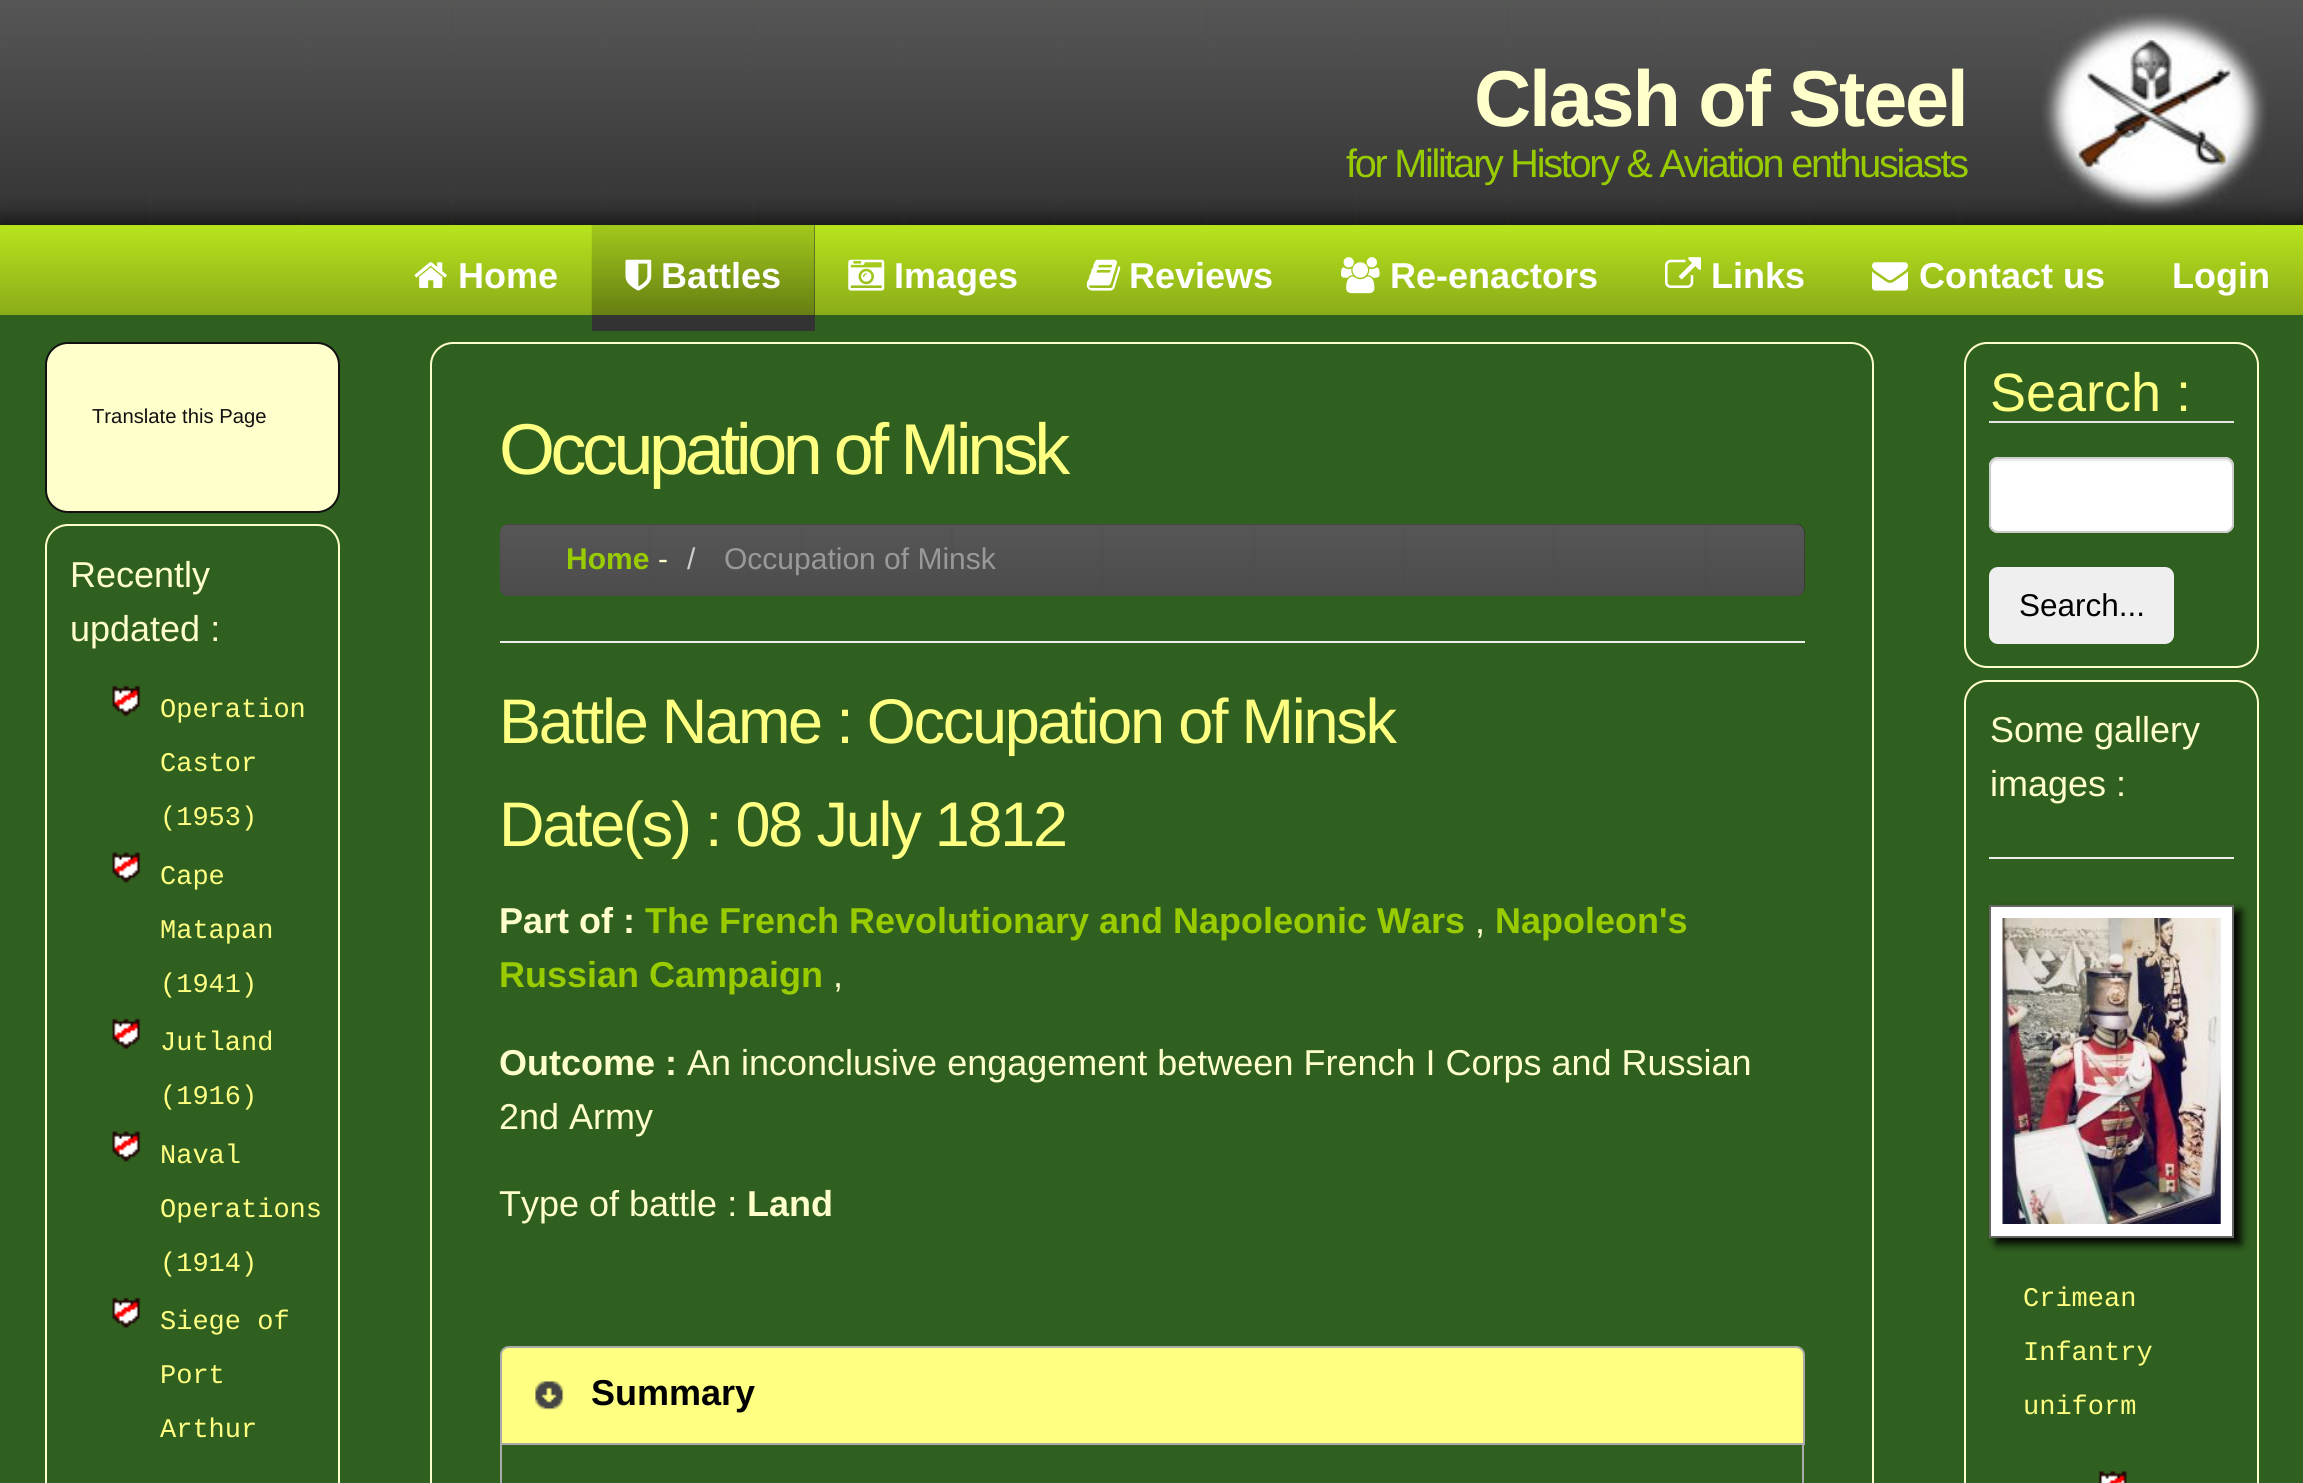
import math
import cairo

surface = cairo.ImageSurface(cairo.FORMAT_RGB24, 2303, 1483)
c = cairo.Context(surface)
options = cairo.FontOptions()
options.set_hint_metrics(cairo.HINT_METRICS_OFF)
options.set_hint_style(cairo.HINT_STYLE_NONE)
c.set_font_options(options)
c.set_miter_limit(4)
def C(code):
 c.set_source_rgb(*(v / 255 for v in bytes.fromhex(code[-6:])))
def F(family, size, italic, bold):
 c.select_font_face(family, cairo.FONT_SLANT_ITALIC if italic else cairo.FONT_SLANT_NORMAL, cairo.FONT_WEIGHT_BOLD if bold else cairo.FONT_WEIGHT_NORMAL)
 c.set_font_size(size)
def T(x, y, s):
 c.move_to(x, y)
 c.show_text(s)
def L(x, y, s, letter, word):
 c.move_to(x, y)
 for ch in s:
  c.show_text(ch)
  c.rel_move_to(letter + word * (ch == ' '), 0)
def R(x, y, w, h):
 c.rectangle(x, y, w, h)
 c.fill()
def Q(x, y, w, h, r):
 c.new_sub_path()
 for i, (u, v) in enumerate([(x + w - r, y + h - r), (x + r, y + h - r), (x + r, y + r), (x + w - r, y + r)]):
  c.arc(u, v, r, i * math.pi / 2, (i + 1) * math.pi / 2)
 c.close_path()
def S(x, y, w, h, r, blur, alpha):
 c.push_group_with_content(cairo.CONTENT_ALPHA)
 c.set_operator(cairo.OPERATOR_SOURCE)
 for i in range(15, -16, -2):
  e = blur * i / 6
  if min(w, h) + 2 * e > 0:
   c.set_source_rgba(0, 0, 0, alpha * math.erfc((i - 1) / 8.5) / 2)
   Q(x - e, y - e, w + 2 * e, h + 2 * e, max(0, min(r + e + blur * .6, min(w, h) / 2 + e)))
   c.fill()
 c.mask(c.pop_group())
def I(path, x, y, w, h):
 c.save()
 c.set_source_surface(cairo.ImageSurface.create_from_png(path), x, y)
 c.rectangle(x, y, w, h)
 c.fill()
 c.restore()
C('306020')
c.paint()
I('1.png',0,0,2303,225)
F('Liberation Sans',79.25,0,1)
C('ffffcc')
L(1474,126,'Clash of Steel',-2.25,0)
F('Liberation Sans',39.6,0,0)
C('99cc00')
L(1346,177,'for Military History & Aviation enthusiasts',-2.25,0)
I('2.png',2041,13,226,201)
I('3.png',0,225,2303,90)
I('4.png',414,262,33,26)
F('Liberation Sans',36,0,1)
C('ffffff')
T(458,288,'Home')
C('333333')
R(592,225,223,106)
I('5.png',591,225,224,90)
I('6.png',625,259,27,32)
C('ffffff')
T(661,288,'Battles')
I('7.png',848,259,37,32)
T(894,288,'Images')
I('8.png',1086,259,35,32)
T(1129,288,'Reviews')
I('9.png',1341,257,39,37)
T(1390,288,'Re-enactors')
I('10.png',1665,257,36,31)
T(1711,288,'Links')
I('11.png',1872,262,36,29)
T(1919,288,'Contact us')
T(2172,288,'Login')
C('ffffcc')
Q(46,343,293,169,22)
c.fill_preserve()
C('111111')
c.stroke()
F('Liberation Sans',20.25,0,0)
T(92,423,'Translate this Page')
Q(46,525,293,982,22)
C('ffffcc')
c.stroke()
F('Liberation Sans',36,0,0)
T(70,587,'Recently')
T(70,641,'updated :')
I('12.png',112,685,29,32)
F('Liberation Mono',27,0,0)
C('ffff82')
T(160,717,'Operation')
T(160,771,'Castor')
T(160,825,'(1953)')
I('13.png',112,852,29,31)
T(160,884,'Cape')
T(160,938,'Matapan')
T(160,992,'(1941)')
I('12.png',112,1018,29,32)
T(160,1050,'Jutland')
T(160,1104,'(1916)')
I('13.png',112,1131,29,31)
T(160,1163,'Naval')
T(160,1217,'Operations')
T(160,1271,'(1914)')
I('12.png',112,1297,29,32)
T(160,1329,'Siege of')
T(160,1383,'Port')
T(160,1437,'Arthur')
Q(431,343,1442,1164,22)
C('ffffcc')
c.stroke()
F('Liberation Sans',72,0,0)
C('ffff82')
L(499,474,'Occupation of Minsk',-4.5,0)
C('333333')
Q(500,524,1305,72,9)
c.fill()
I('14.png',499,524,1306,72)
F('Liberation Sans',30,0,1)
C('99cc00')
T(566,569,'Home')
F('Liberation Sans',30,0,0)
C('ffffcc')
T(658,569,'-')
C('cccccc')
T(687,569,'/')
C('999999')
T(724,569,'Occupation of Minsk')
C('eeeeee')
R(500,641,1305,2)
F('Liberation Sans',63,0,0)
C('ffff82')
L(499,743,'Battle Name : Occupation of Minsk',-2.25,0)
L(499,846,'Date(s) : 08 July 1812',-2.25,0)
F('Liberation Sans',36,0,1)
C('ffffcc')
T(499,933,'Part of :')
C('99cc00')
T(645,933,'The French Revolutionary and Napoleonic Wars')
F('Liberation Sans',36,0,0)
C('ffffcc')
T(1475,933,',')
F('Liberation Sans',36,0,1)
C('99cc00')
T(1495,933,'Napoleon\'s')
T(499,987,'Russian Campaign')
F('Liberation Sans',36,0,0)
C('ffffcc')
T(833,987,',')
F('Liberation Sans',36,0,1)
T(499,1075,'Outcome :')
F('Liberation Sans',36,0,0)
T(687,1075,'An inconclusive engagement between French I Corps and Russian')
T(499,1129,'2nd Army')
T(499,1216,'Type of battle :')
F('Liberation Sans',36,0,1)
T(747,1216,'Land')
C('aaaaaa')
c.set_fill_rule(cairo.FILL_RULE_EVEN_ODD)
c.new_path()
c.move_to(500,1444)
c.line_to(1804,1444)
c.line_to(1804,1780)
c.curve_to(1804,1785,1800,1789,1796,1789)
c.line_to(508,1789)
c.curve_to(504,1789,500,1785,500,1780)
c.close_path()
c.move_to(502,1444)
c.line_to(1802,1444)
c.line_to(1802,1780)
c.curve_to(1802,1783,1799,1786,1796,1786)
c.line_to(508,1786)
c.curve_to(505,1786,502,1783,502,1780)
c.close_path()
c.fill()
C('ffff82')
c.new_path()
c.move_to(509,1347)
c.line_to(1796,1347)
c.curve_to(1800.5,1347,1804,1350.5,1804,1355)
c.line_to(1804,1444)
c.line_to(501,1444)
c.line_to(501,1355)
c.curve_to(501,1350.5,504.5,1347,509,1347)
c.close_path()
c.fill_preserve()
C('aaaaaa')
c.stroke()
I('15.png',535,1381,29,29)
C('000000')
T(591,1405,'Summary')
Q(1965,343,293,324,22)
C('ffffcc')
c.stroke()
C('e5e5e5')
R(1989,421,245,2)
F('Liberation Sans',54,0,0)
C('ffff82')
T(1990,411,'Search :')
C('ffffff')
Q(1989,457,245,76,9)
c.fill()
C('ececec')
c.set_fill_rule(cairo.FILL_RULE_WINDING)
c.new_path()
c.move_to(1998,461)
c.line_to(2225,461)
c.curve_to(2229,461,2232,464,2232,468)
c.line_to(2232,466)
c.curve_to(2232,462,2229,459,2225,459)
c.line_to(1998,459)
c.curve_to(1994,459,1991,462,1991,466)
c.line_to(1991,468)
c.curve_to(1991,464,1994,461,1998,461)
c.close_path()
c.fill()
Q(1990,458,243,74,8)
C('cccccc')
c.stroke()
C('efefef')
Q(1989,567,185,77,9)
c.fill()
F('Liberation Sans',31.5,0,0)
C('000000')
T(2019,616,'Search...')
Q(1965,681,293,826,22)
C('ffffcc')
c.stroke()
F('Liberation Sans',36,0,0)
T(1990,742,'Some gallery')
T(1990,796,'images :')
C('eeeeee')
R(1989,857,245,2)
C('000000')
S(1996,911,245,333,0,4.5,1)
C('ffffff')
c.rectangle(1990,906,243,331)
c.fill_preserve()
C('666666')
c.stroke()
I('16.png',2002,918,219,306)
F('Liberation Mono',27,0,0)
C('ffff82')
T(2023,1306,'Crimean')
T(2023,1360,'Infantry')
T(2023,1414,'uniform')
I('17.png',2098,1471,29,12)
surface.write_to_png('o.png')
